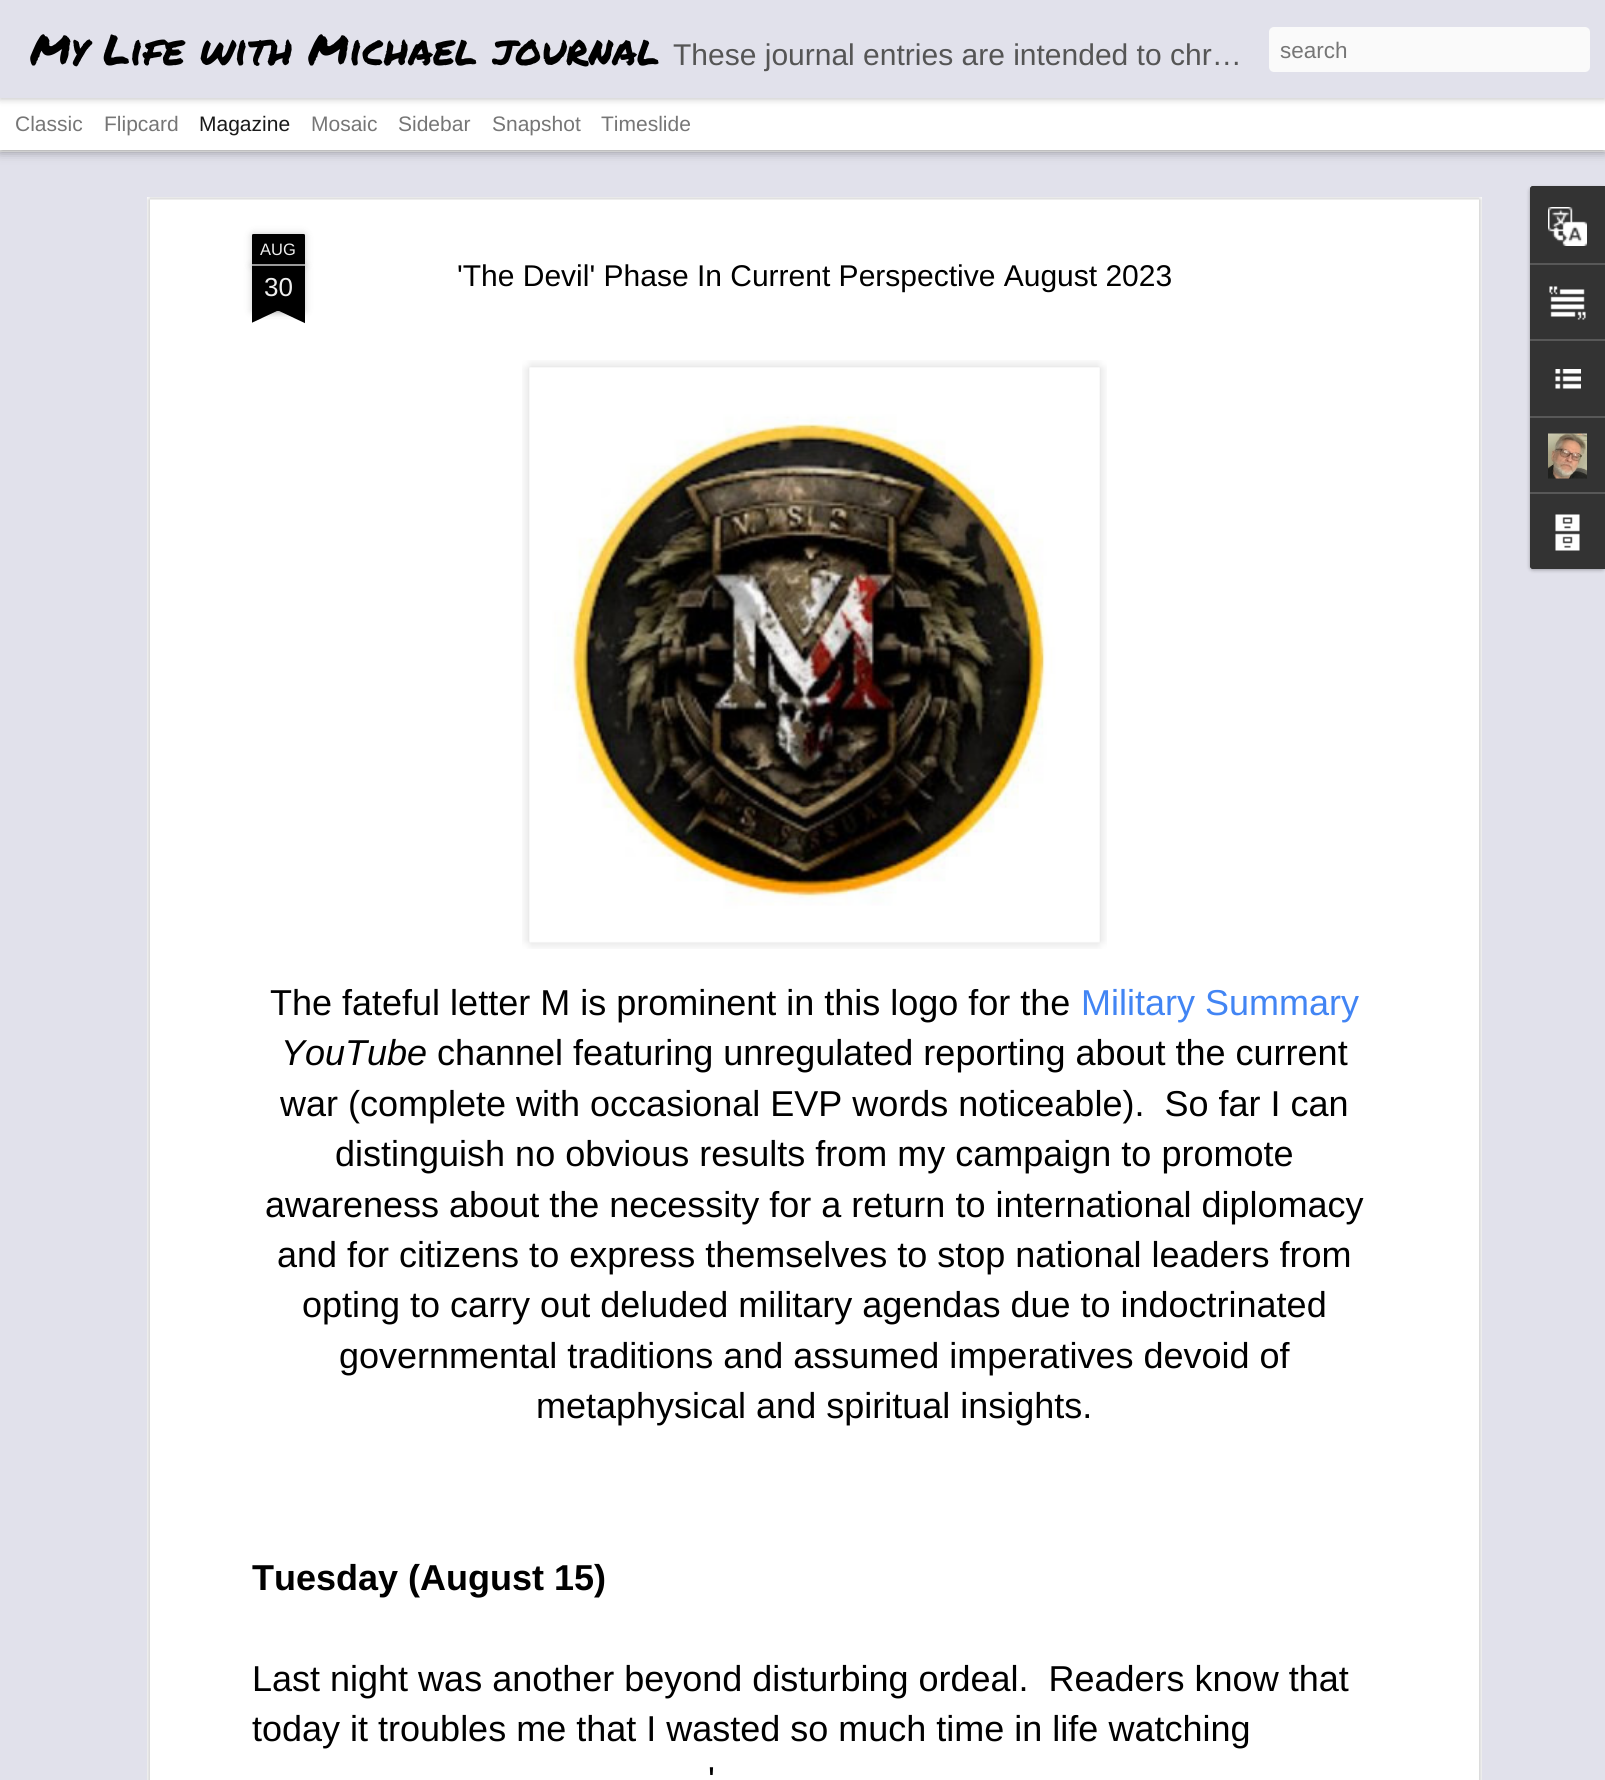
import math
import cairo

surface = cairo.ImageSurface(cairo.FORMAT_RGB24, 1605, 1780)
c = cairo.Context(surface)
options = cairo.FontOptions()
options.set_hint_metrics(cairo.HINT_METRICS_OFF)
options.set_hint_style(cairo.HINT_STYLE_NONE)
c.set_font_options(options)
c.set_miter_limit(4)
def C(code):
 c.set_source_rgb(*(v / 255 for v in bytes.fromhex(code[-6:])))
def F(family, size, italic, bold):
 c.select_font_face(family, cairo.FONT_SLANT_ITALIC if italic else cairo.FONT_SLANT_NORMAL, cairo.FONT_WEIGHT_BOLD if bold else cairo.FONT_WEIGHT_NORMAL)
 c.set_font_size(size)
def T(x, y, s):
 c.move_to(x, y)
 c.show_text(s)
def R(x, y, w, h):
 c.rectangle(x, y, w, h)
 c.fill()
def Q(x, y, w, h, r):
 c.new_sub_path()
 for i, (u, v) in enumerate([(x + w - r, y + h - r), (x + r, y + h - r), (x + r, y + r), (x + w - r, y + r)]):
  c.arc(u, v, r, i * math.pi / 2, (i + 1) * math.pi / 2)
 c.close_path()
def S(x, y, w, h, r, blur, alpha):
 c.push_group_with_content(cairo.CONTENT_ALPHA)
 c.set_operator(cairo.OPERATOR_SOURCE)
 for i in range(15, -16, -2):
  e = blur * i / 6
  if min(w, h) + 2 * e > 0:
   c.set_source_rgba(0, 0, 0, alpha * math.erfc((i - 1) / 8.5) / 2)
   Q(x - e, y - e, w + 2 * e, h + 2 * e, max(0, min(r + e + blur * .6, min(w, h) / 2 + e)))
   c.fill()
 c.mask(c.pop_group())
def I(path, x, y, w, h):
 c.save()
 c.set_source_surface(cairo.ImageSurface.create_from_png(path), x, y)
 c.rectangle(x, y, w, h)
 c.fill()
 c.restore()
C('ffffff')
c.paint()
C('e1e1eb')
R(0,152,1605,1628)
C('000000')
S(0,98,1605,52,0,6,.5)
C('ffffff')
R(0,98,1605,52)
C('000000')
S(0,0,1605,98,0,4,.3)
C('e1e1eb')
R(0,0,1605,98)
F('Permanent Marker',42,0,0)
C('000000')
T(30,65,'My Life with Michael journal')
F('Liberation Sans',30,0,0)
C('555555')
T(673,65,'These journal entries are intended to chr…')
C('fafafa')
Q(1269,27,321,45,5)
c.fill()
F('Liberation Sans',22.5,0,0)
C('767676')
T(1280,58,'search')
F('Liberation Sans',21,0,0)
T(15,131,'Classic')
T(104,131,'Flipcard')
C('1a1a1a')
T(199,131,'Magazine')
C('767676')
T(311,131,'Mosaic')
T(398,131,'Sidebar')
T(492,131,'Snapshot')
T(601,131,'Timeslide')
C('ffffff')
R(147,197,1335,1583)
I('1.png',147,197,1335,1583)
C('000000')
S(252,266,53,45,0,4,.2)
C('000000')
R(252,266,53,45)
C('000000')
S(252,234,53,32,1.5,4,.2)
C('000000')
c.new_path()
c.move_to(253.5,234)
c.line_to(303.5,234)
c.curve_to(304.5,234,305,234.5,305,235.5)
c.line_to(305,266)
c.line_to(252,266)
c.line_to(252,235.5)
c.curve_to(252,234.5,252.5,234,253.5,234)
c.close_path()
c.fill()
C('999999')
R(252,264,53,2)
F('Liberation Sans',16.5,0,0)
C('eeeeee')
T(260,255,'AUG')
F('Liberation Sans',26,0,0)
T(264,296,'30')
c.save()
c.rectangle(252,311,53,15)
c.clip()
C('000000')
S(239,296,75,15,0,4,.2)
c.restore()
c.save()
c.rectangle(252,311,53,15)
c.clip()
C('000000')
c.new_path()
c.move_to(239,312)
c.line_to(307,280)
c.line_to(313,294)
c.line_to(245,326)
c.close_path()
c.fill()
c.restore()
c.save()
c.rectangle(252,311,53,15)
c.clip()
C('000000')
S(243,296,75,15,0,4,.2)
c.restore()
c.save()
c.rectangle(252,311,53,15)
c.clip()
C('000000')
c.new_path()
c.move_to(250,280)
c.line_to(318,312)
c.line_to(311,326)
c.line_to(243,294)
c.close_path()
c.fill()
c.restore()
F('Liberation Sans',30,0,0)
C('000000')
T(457,286,'\'The Devil\' Phase In Current Perspective August 2023')
I('2.png',522,360,585,589)
I('3.png',529,367,571,576)
F('Liberation Sans',36,0,0)
T(270,1015,'The fateful letter M is prominent in this logo for the')
C('4285f4')
T(1081,1015,'Military Summary')
F('Liberation Sans',36,1,0)
C('000000')
T(281,1065,'YouTube')
F('Liberation Sans',36,0,0)
T(437,1065,'channel featuring unregulated reporting about the current')
T(280,1116,'war (complete with occasional EVP words noticeable).  So far I can')
T(335,1166,'distinguish no obvious results from my campaign to promote')
T(265,1217,'awareness about the necessity for a return to international diplomacy')
T(277,1267,'and for citizens to express themselves to stop national leaders from')
T(302,1317,'opting to carry out deluded military agendas due to indoctrinated')
T(339,1368,'governmental traditions and assumed imperatives devoid of')
T(536,1418,'metaphysical and spiritual insights.')
F('Liberation Sans',36,0,1)
T(252,1590,'Tuesday (August 15)')
F('Liberation Sans',36,0,0)
T(252,1691,'Last night was another beyond disturbing ordeal.  Readers know that')
T(252,1741,'today it troubles me that I wasted so much time in life watching')
T(708,1792,'\'')
C('000000')
S(1530,188,75,382,3,2,.3)
C('333333')
c.new_path()
c.move_to(1533,186)
c.line_to(1605,186)
c.line_to(1605,569)
c.line_to(1533,569)
c.curve_to(1531.5,569,1530,567.5,1530,566)
c.line_to(1530,189)
c.curve_to(1530,187.5,1531.5,186,1533,186)
c.close_path()
c.fill()
c.new_path()
c.move_to(1533,186)
c.line_to(1605,186)
c.line_to(1605,263)
c.line_to(1530,263)
c.line_to(1530,189)
c.curve_to(1530,187.5,1531.5,186,1533,186)
c.close_path()
c.fill()
I('4.png',1548,207,39,39)
C('585858')
R(1530,263,75,2)
I('5.png',1549,286,37,34)
R(1530,339,75,2)
I('6.png',1555,369,26,20)
R(1530,416,75,2)
I('7.png',1548,433,39,46)
C('333333')
c.new_path()
c.move_to(1530,492)
c.line_to(1605,492)
c.line_to(1605,569)
c.line_to(1533,569)
c.curve_to(1531.5,569,1530,567.5,1530,566)
c.close_path()
c.fill()
C('585858')
R(1530,492,75,2)
I('8.png',1555,514,25,37)
surface.write_to_png('o.png')
